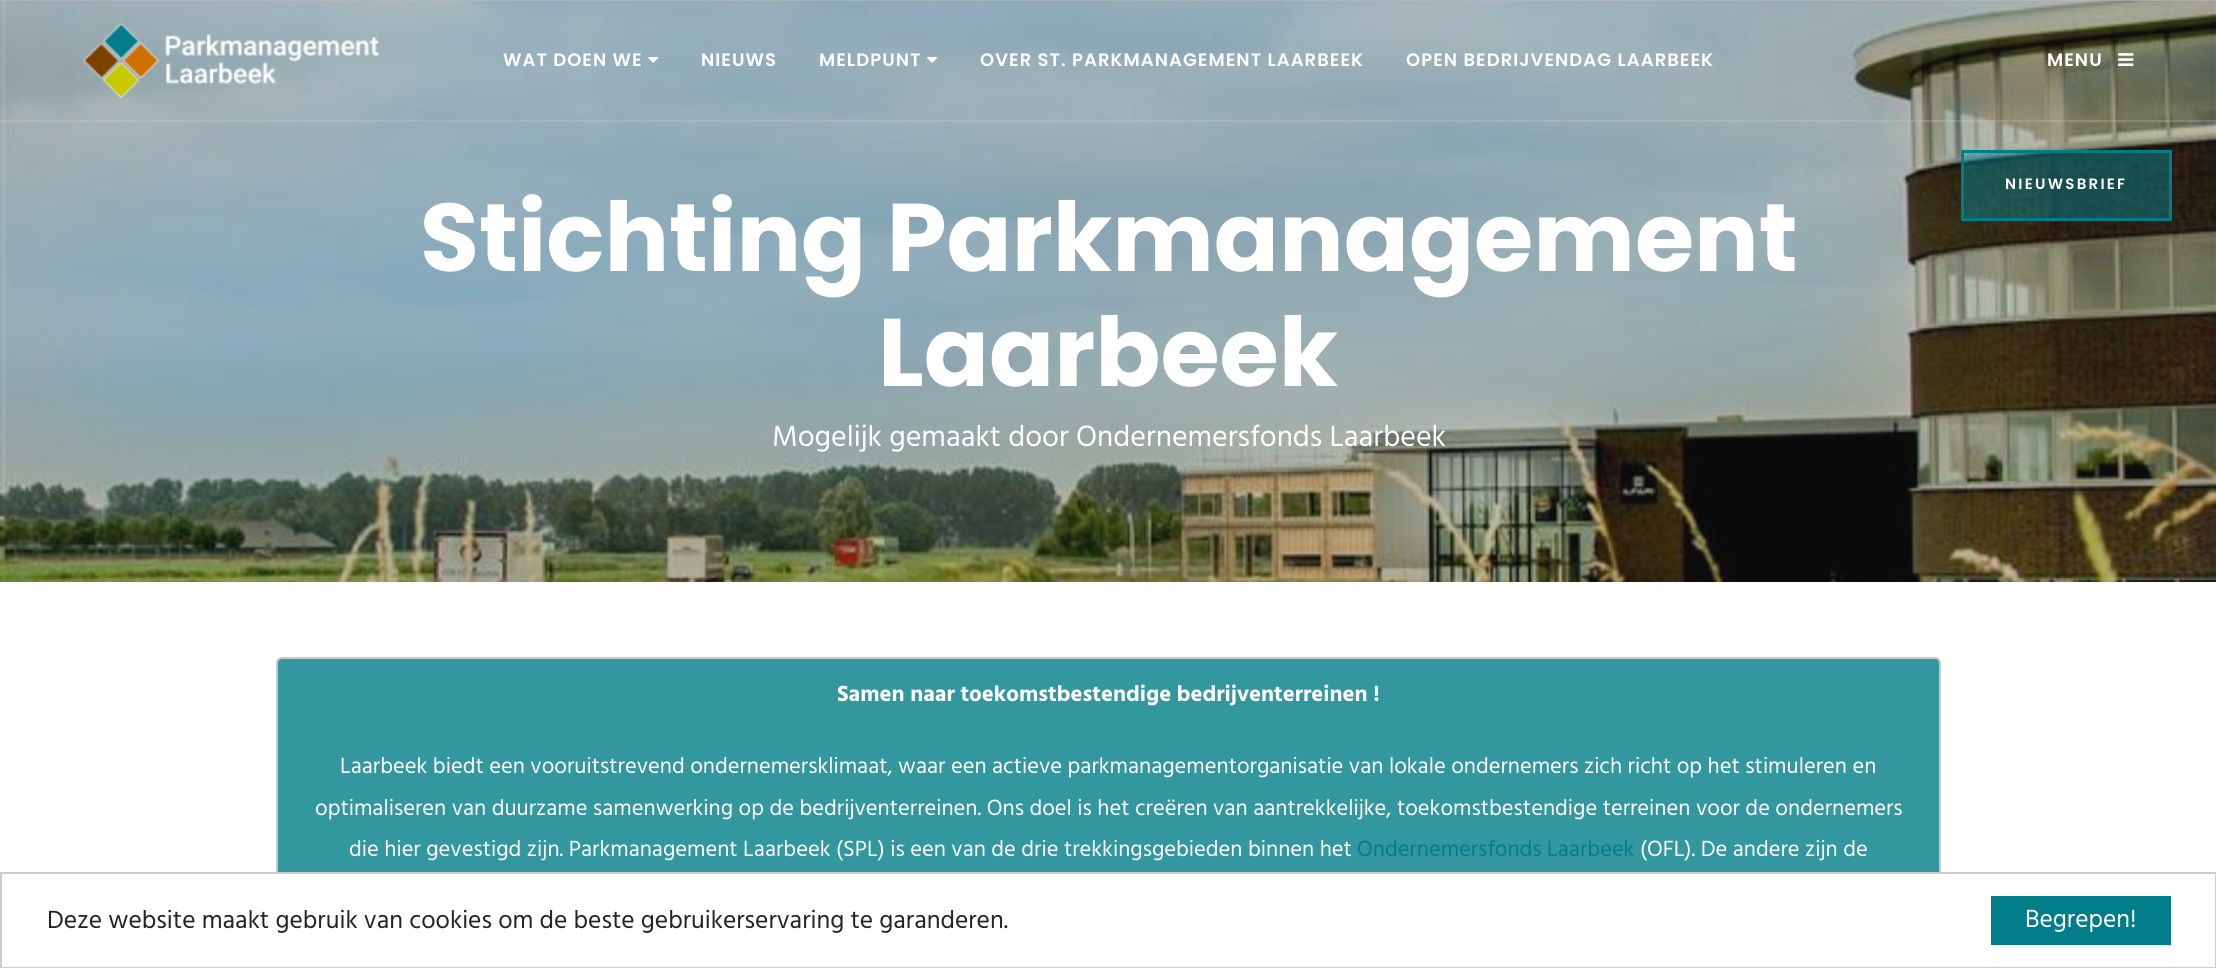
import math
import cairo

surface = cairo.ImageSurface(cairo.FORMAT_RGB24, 2216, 968)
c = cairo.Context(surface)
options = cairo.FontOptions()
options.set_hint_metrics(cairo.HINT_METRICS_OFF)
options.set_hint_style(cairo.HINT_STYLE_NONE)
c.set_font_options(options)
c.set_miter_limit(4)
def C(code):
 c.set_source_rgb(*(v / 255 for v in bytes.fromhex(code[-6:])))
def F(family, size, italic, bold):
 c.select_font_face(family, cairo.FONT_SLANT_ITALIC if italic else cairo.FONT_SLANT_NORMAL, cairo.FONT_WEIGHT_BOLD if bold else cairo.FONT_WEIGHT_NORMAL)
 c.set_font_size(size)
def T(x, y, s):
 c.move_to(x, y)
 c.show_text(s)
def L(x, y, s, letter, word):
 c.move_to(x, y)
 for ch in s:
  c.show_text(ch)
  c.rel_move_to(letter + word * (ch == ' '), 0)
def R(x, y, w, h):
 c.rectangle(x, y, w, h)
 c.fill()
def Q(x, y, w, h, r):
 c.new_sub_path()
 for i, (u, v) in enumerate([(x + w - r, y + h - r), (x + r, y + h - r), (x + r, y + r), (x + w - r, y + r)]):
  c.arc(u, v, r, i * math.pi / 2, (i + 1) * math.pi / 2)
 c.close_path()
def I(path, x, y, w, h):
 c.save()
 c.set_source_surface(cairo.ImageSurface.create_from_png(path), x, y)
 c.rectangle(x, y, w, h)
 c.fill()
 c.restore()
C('ffffff')
c.paint()
C('bdbdbd')
R(0,0,2216,1)
I('5.png',0,0,2216,582)
c.set_source_rgba(0.863,0.863,0.863,0.2)
R(0,120,2216,2)
I('1.png',82,22,298,77)
F('Poppins SemiBold',18,0,0)
C('ffffff')
L(503,66,'WAT DOEN WE',1.05,0)
I('2.png',648,57,11,6)
L(701,66,'NIEUWS',1.05,0)
L(819,66,'MELDPUNT',1.05,0)
I('3.png',927,57,11,6)
L(980,66,'OVER ST. PARKMANAGEMENT LAARBEEK',1.05,0)
L(1406,66,'OPEN BEDRIJVENDAG LAARBEEK',1.05,0)
L(2047,66,'MENU',1.05,0)
I('4.png',2118,53,16,13)
F('Poppins',96,0,1)
T(420,271,'Stichting Parkmanagement')
T(878,386,'Laarbeek')
F('Hind',30,0,0)
T(772,446,'Mogelijk gemaakt door Ondernemersfonds Laarbeek')
C('3397a0')
Q(277,658,1663,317,5)
c.fill_preserve()
C('c6c8ca')
c.stroke()
F('Hind',22.5,0,1)
C('ffffff')
T(837,701,'Samen naar toekomstbestendige bedrijventerreinen !')
F('Hind',22.5,0,0)
T(340,773,'Laarbeek biedt een vooruitstrevend ondernemersklimaat, waar een actieve parkmanagementorganisatie van lokale ondernemers zich richt op het stimuleren en')
T(315,815,'optimaliseren van duurzame samenwerking op de bedrijventerreinen. Ons doel is het creëren van aantrekkelijke, toekomstbestendige terreinen voor de ondernemers')
T(349,856,'die hier gevestigd zijn. Parkmanagement Laarbeek (SPL) is een van de drie trekkingsgebieden binnen het')
C('007d88')
T(1357,856,'Ondernemersfonds Laarbeek')
C('ffffff')
T(1640,856,'(OFL). De andere zijn de')
c.set_source_rgba(0,0.596,0.671,0.4)
c.rectangle(1962.5,151.5,208,68)
c.fill_preserve()
C('007d88')
c.set_line_width(3)
c.stroke()
F('Poppins SemiBold',15,0,0)
C('ffffff')
L(2005,189,'NIEUWSBRIEF',2.25,0)
R(276,874,1665,93)
c.rectangle(1,873,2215,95)
C('cccccc')
c.set_line_width(2)
c.stroke()
F('Hind',25.5,0,0)
C('212529')
T(47,928,'Deze website maakt gebruik van cookies om de beste gebruikerservaring te garanderen.')
C('007d88')
R(1991,896,180,49)
C('ffffff')
T(2025,927,'Begrepen!')
surface.write_to_png('o.png')
